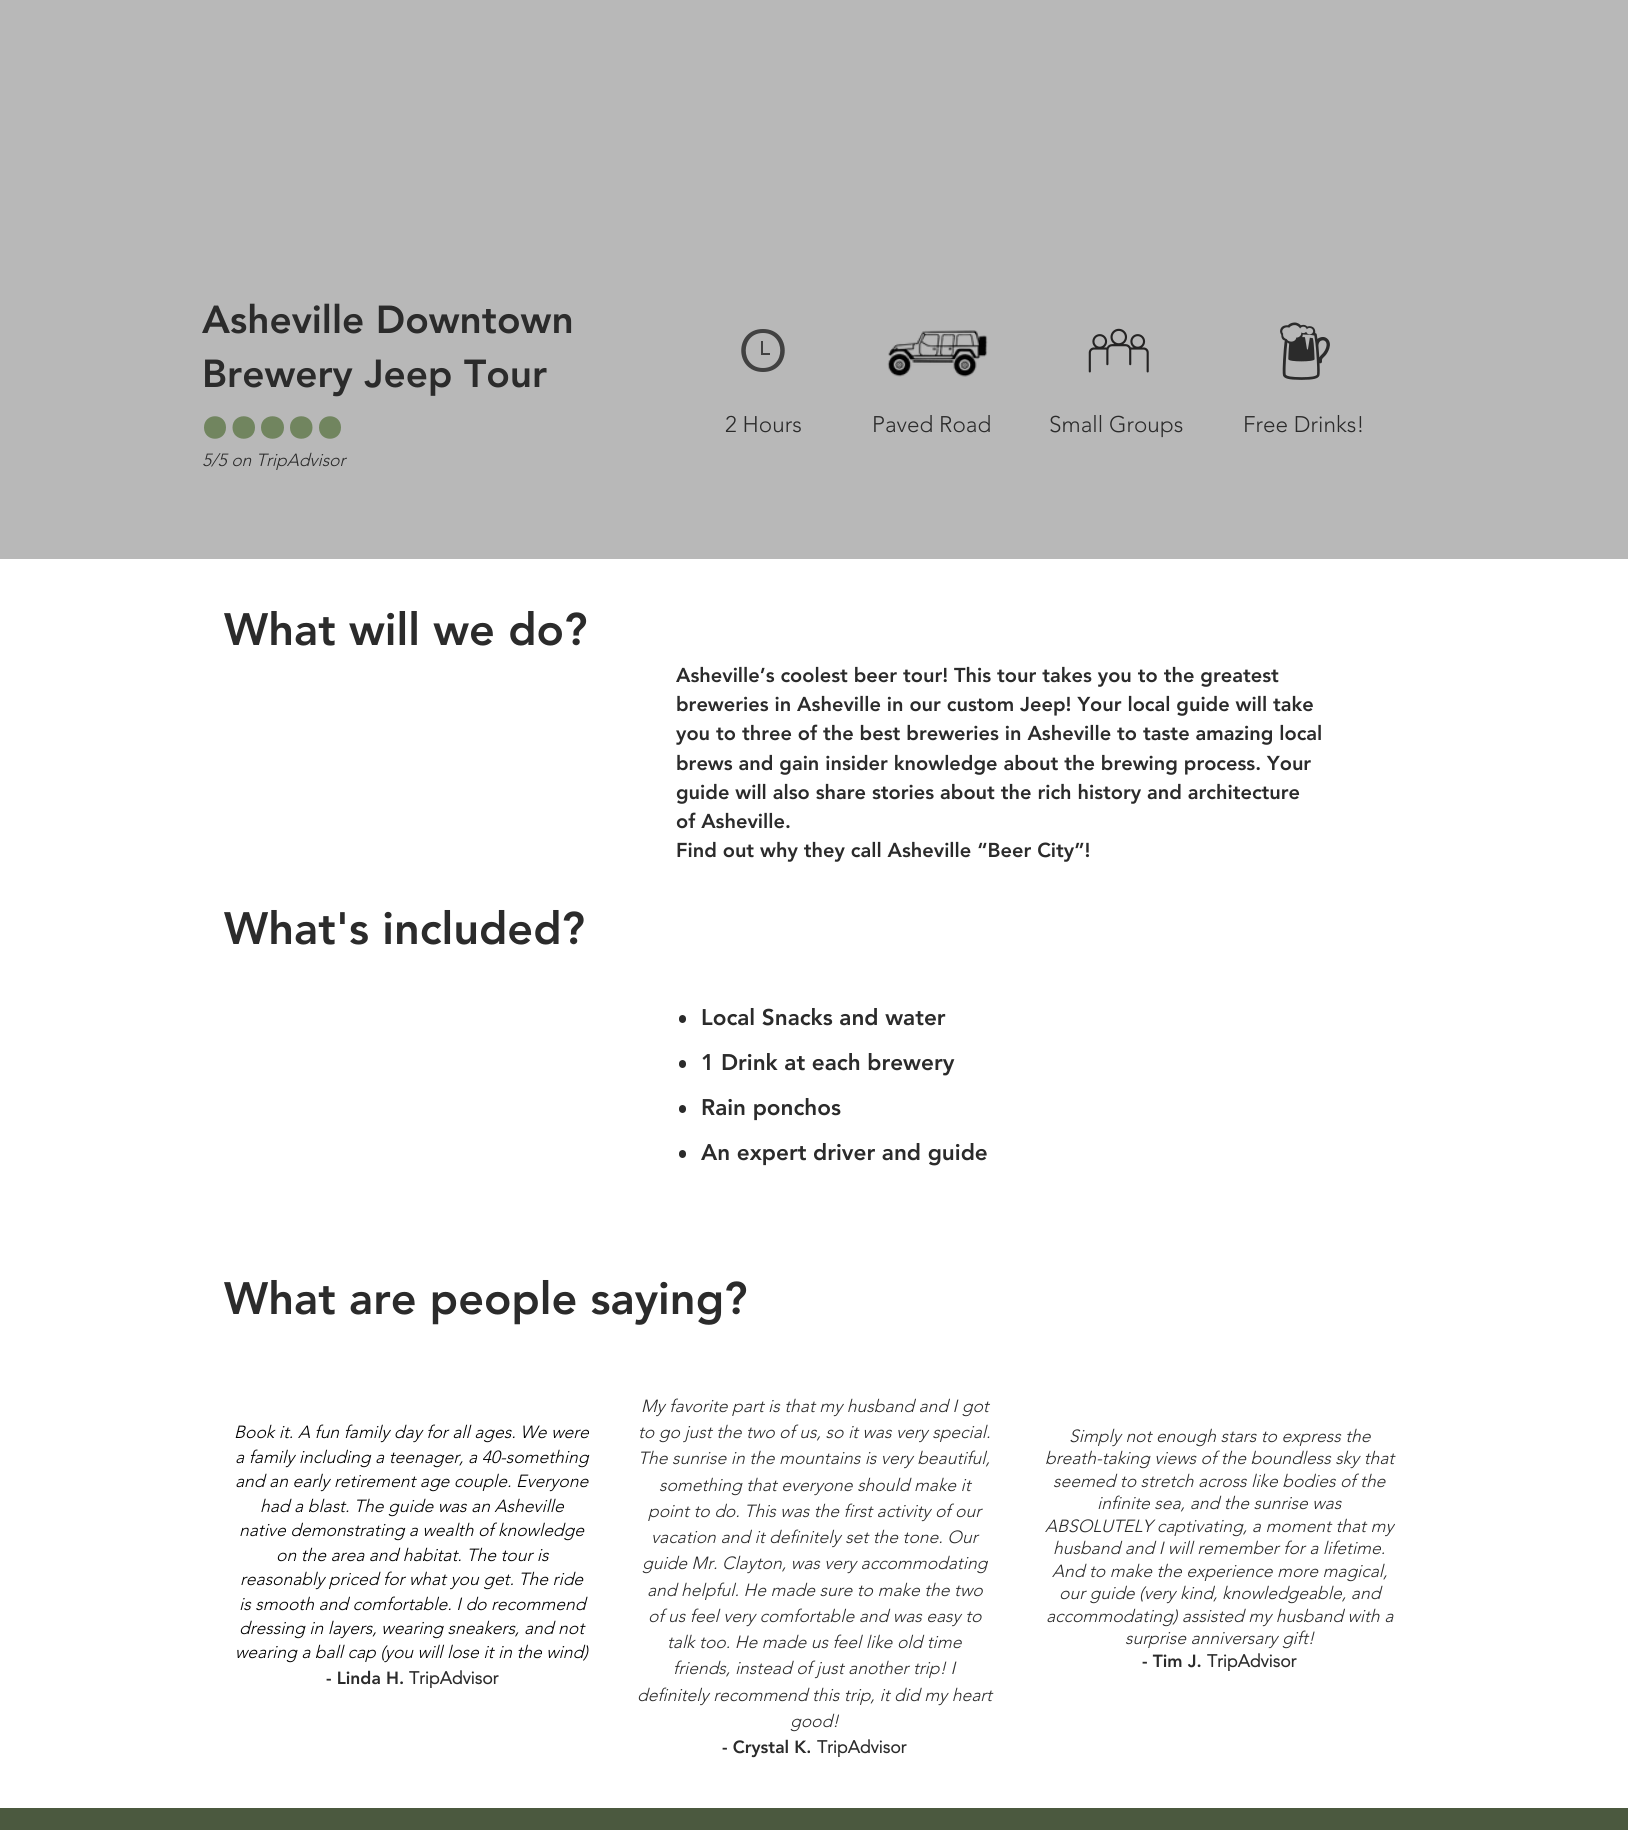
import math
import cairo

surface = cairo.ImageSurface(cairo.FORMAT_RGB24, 1628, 1830)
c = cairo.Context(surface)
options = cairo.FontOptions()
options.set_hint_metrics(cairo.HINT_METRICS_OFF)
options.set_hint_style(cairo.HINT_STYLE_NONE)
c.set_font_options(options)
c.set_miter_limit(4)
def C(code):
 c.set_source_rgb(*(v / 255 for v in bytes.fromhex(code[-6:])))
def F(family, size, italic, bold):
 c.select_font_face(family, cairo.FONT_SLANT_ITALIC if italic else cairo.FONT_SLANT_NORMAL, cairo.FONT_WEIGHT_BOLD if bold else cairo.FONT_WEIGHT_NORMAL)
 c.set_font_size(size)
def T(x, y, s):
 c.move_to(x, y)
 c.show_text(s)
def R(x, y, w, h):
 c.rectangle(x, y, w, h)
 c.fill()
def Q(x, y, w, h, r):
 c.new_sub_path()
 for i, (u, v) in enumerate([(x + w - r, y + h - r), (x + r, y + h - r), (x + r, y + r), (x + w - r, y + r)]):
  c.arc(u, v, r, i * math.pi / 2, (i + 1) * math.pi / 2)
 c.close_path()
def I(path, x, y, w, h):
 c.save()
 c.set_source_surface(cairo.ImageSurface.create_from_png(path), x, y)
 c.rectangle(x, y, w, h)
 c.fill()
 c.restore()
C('b8b8b8')
c.paint()
F('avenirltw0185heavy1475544 Black',38.75,0,0)
C('2b2b2b')
T(202,333,'Asheville Downtown')
T(202,387,'Brewery Jeep Tour')
C('414141')
c.new_path()
c.move_to(763,329)
c.curve_to(734,329,734,372,763,372)
c.curve_to(792,372,792,329,763,329)
c.close_path()
c.move_to(763,368)
c.curve_to(740,368,740,333,763,333)
c.curve_to(786,333,786,368,763,368)
c.close_path()
c.move_to(763,353)
c.line_to(770,353)
c.line_to(770,355)
c.line_to(761,355)
c.line_to(761,341)
c.line_to(763,341)
c.close_path()
c.fill()
I('1.png',887,330,101,47)
I('2.png',1088,328,61,45)
I('3.png',1280,322,50,58)
C('71855f')
c.new_path()
c.move_to(226,427.5)
c.curve_to(226,442.5,204,442.5,204,427.5)
c.curve_to(204,412.5,226,412.5,226,427.5)
c.close_path()
c.move_to(255,427.5)
c.curve_to(255,442.5,232.5,442.5,232.5,427.5)
c.curve_to(232.5,412.5,255,412.5,255,427.5)
c.close_path()
c.fill()
c.new_path()
c.move_to(284,427.5)
c.curve_to(284,442.5,261,442.5,261,427.5)
c.curve_to(261,412.5,284,412.5,284,427.5)
c.close_path()
c.move_to(312.5,427.5)
c.curve_to(312.5,442.5,290,442.5,290,427.5)
c.curve_to(290,412.5,312.5,412.5,312.5,427.5)
c.close_path()
c.fill()
c.new_path()
c.move_to(341,427.5)
c.curve_to(341,442.5,319,442.5,319,427.5)
c.curve_to(319,412.5,341,412.5,341,427.5)
c.close_path()
c.fill()
F('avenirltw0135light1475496 Light',22.5,0,0)
C('2b2b2b')
T(725,432,'2 Hours')
T(872,432,'Paved Road')
T(1049,432,'Small Groups')
T(1243,432,'Free Drinks!')
F('avenirltw0135light1475496 Light',17.5,1,0)
T(202,466,'5/5 on TripAdvisor')
C('ffffff')
R(0,559,1628,1249)
F('avenirltw0185heavy1475544 Black',45,0,0)
C('2b2b2b')
T(224,645,'What will we do?')
F('avenirltw0185heavy1475544 Black',20,0,0)
T(676,682,'Asheville’s coolest beer tour! This tour takes you to the greatest')
T(676,711,'breweries in Asheville in our custom Jeep! Your local guide will take')
T(676,740,'you to three of the best breweries in Asheville to taste amazing local')
T(676,770,'brews and gain insider knowledge about the brewing process. Your')
T(676,799,'guide will also share stories about the rich history and architecture')
T(676,828,'of Asheville.')
T(676,857,'Find out why they call Asheville “Beer City”!')
F('avenirltw0185heavy1475544 Black',45,0,0)
T(224,944,'What\'s included?')
Q(679,1015,7,8,3.5)
c.fill()
F('avenirltw0185heavy1475544 Black',22.5,0,0)
T(701,1025,'Local Snacks and water')
Q(679,1060,7,8,3.5)
c.fill()
T(701,1070,'1 Drink at each brewery')
Q(679,1105,7,8,3.5)
c.fill()
T(701,1115,'Rain ponchos')
Q(679,1150,7,8,3.5)
c.fill()
T(701,1160,'An expert driver and guide')
F('avenirltw0185heavy1475544 Black',45,0,0)
T(224,1314,'What are people saying?')
F('avenirltw0135light1475496 Light',17.5,1,0)
C('000000')
T(234,1438,'Book it. A fun family day for all ages. We were')
T(235,1463,'a family including a teenager, a 40-something')
T(235,1487,'and an early retirement age couple. Everyone')
T(260,1512,'had a blast. The guide was an Asheville')
T(239,1536,'native demonstrating a wealth of knowledge')
T(276,1561,'on the area and habitat. The tour is')
T(240,1585,'reasonably priced for what you get. The ride')
T(239,1610,'is smooth and comfortable. I do recommend')
T(239,1634,'dressing in layers, wearing sneakers, and not')
T(235,1658,'wearing a ball cap (you will lose it in the wind)')
F('avenirltw0185heavy1475544 Black',17.5,0,0)
C('2b2b2b')
T(326,1684,'- Linda H.')
F('avenirltw0135light1475496',17.5,0,1)
T(409,1684,'TripAdvisor')
F('avenirltw0135light1475496 Light',17.5,1,0)
T(641,1412,'My favorite part is that my husband and I got')
T(638,1438,'to go just the two of us, so it was very special.')
T(638,1464,'The sunrise in the mountains is very beautiful,')
T(659,1491,'something that everyone should make it')
T(648,1517,'point to do. This was the first activity of our')
T(651,1543,'vacation and it definitely set the tone. Our')
T(642,1569,'guide Mr. Clayton, was very accommodating')
T(647,1596,'and helpful. He made sure to make the two')
T(648,1622,'of us feel very comfortable and was easy to')
T(667,1648,'talk too. He made us feel like old time')
T(673,1674,'friends, instead of just another trip! I')
T(637,1701,'definitely recommend this trip, it did my heart')
T(790,1727,'good!')
F('avenirltw0185heavy1475544 Black',17.5,0,0)
T(722,1753,'- Crystal K.')
F('avenirltw0135light1475496',17.5,0,1)
T(817,1753,'TripAdvisor')
F('avenirltw0135light1475496 Light',17.5,1,0)
T(1069,1442,'Simply not enough stars to express the')
T(1045,1464,'breath-taking views of the boundless sky that')
T(1053,1487,'seemed to stretch across like bodies of the')
T(1097,1509,'infinite sea, and the sunrise was')
T(1045,1532,'ABSOLUTELY captivating, a moment that my')
T(1053,1554,'husband and I will remember for a lifetime.')
T(1052,1577,'And to make the experience more magical,')
T(1059,1599,'our guide (very kind, knowledgeable, and')
T(1046,1622,'accommodating) assisted my husband with a')
T(1125,1644,'surprise anniversary gift!')
F('avenirltw0185heavy1475544 Black',17.5,0,0)
T(1142,1667,'- Tim J.')
F('avenirltw0135light1475496',17.5,0,1)
T(1207,1667,'TripAdvisor')
C('4b593f')
R(0,1808,1628,22)
surface.write_to_png('o.png')
